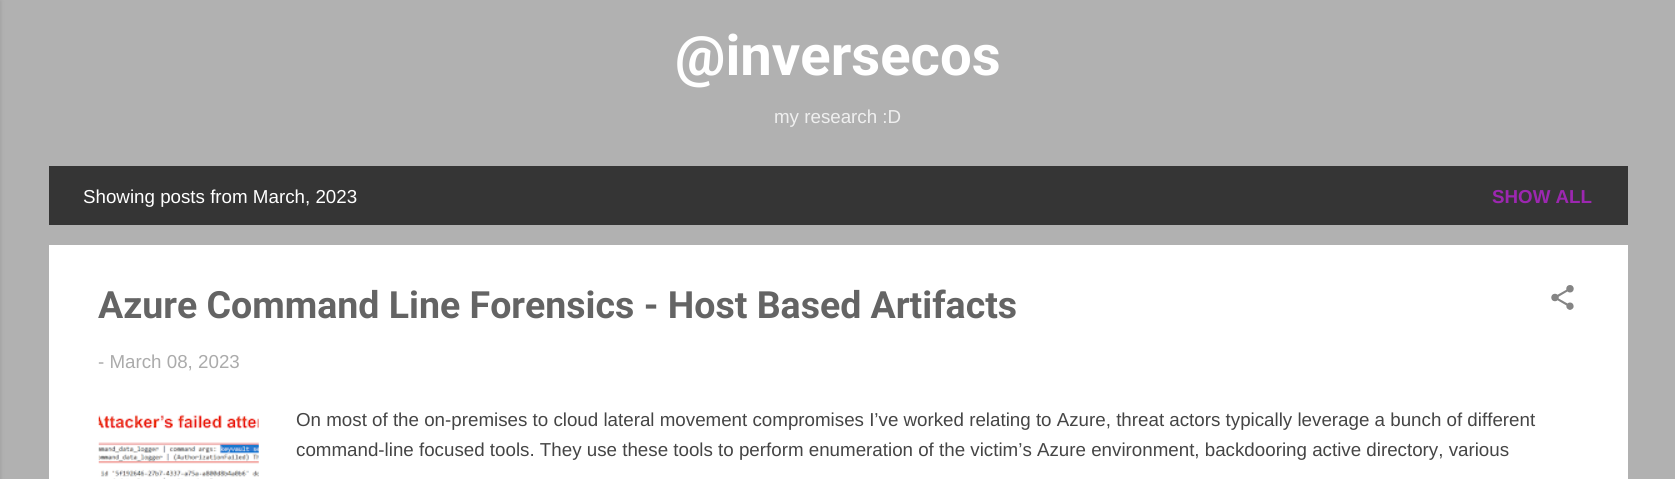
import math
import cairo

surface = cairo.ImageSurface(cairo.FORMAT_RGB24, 1675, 479)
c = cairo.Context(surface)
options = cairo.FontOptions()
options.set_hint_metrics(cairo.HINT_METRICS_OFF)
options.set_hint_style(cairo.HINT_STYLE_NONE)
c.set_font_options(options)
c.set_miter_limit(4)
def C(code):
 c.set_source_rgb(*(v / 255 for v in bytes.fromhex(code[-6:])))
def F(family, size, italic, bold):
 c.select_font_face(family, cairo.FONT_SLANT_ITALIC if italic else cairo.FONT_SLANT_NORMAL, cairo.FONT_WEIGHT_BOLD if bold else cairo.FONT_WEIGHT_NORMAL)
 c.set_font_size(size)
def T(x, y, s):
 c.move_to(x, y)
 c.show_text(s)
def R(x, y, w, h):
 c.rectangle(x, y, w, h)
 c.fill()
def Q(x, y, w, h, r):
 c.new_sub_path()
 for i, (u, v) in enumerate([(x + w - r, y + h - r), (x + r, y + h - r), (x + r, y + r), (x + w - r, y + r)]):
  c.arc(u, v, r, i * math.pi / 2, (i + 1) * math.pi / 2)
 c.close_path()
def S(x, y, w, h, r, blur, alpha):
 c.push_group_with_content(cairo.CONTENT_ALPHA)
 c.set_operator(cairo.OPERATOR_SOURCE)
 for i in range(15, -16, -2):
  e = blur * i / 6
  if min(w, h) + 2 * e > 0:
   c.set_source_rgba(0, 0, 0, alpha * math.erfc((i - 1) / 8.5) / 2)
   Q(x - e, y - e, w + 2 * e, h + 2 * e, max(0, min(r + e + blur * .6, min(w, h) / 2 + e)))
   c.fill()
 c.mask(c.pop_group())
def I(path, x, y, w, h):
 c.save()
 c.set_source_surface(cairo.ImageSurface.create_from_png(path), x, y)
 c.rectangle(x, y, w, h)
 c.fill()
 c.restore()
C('b1b1b1')
c.paint()
C('000000')
S(-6,1,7,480,0,2,.1)
F('Roboto',56.25,0,1)
C('ffffff')
T(675,75,'@inversecos')
F('Liberation Sans',18.75,0,0)
C('efefef')
T(774,123,'my research :D')
C('353535')
R(49,166,1579,59)
C('ffffff')
T(83,203,'Showing posts from March, 2023')
F('Liberation Sans',18.75,0,1)
C('9c27b0')
T(1492,203,'SHOW ALL')
C('ffffff')
R(49,245,1579,234)
F('Roboto',37.5,0,1)
C('646464')
T(98,318,'Azure Command Line Forensics - Host Based Artifacts')
I('1.png',1551,285,23,25)
F('Liberation Sans',18.75,0,0)
C('ababab')
T(98,368,'- March 08, 2023')
I('2.png',98,414,161,65)
C('454545')
T(296,426,'On most of the on-premises to cloud lateral movement compromises I’ve worked relating to Azure, threat actors typically leverage a bunch of different')
T(296,456,'command-line focused tools. They use these tools to perform enumeration of the victim’s Azure environment, backdooring active directory, various')
surface.write_to_png('o.png')
